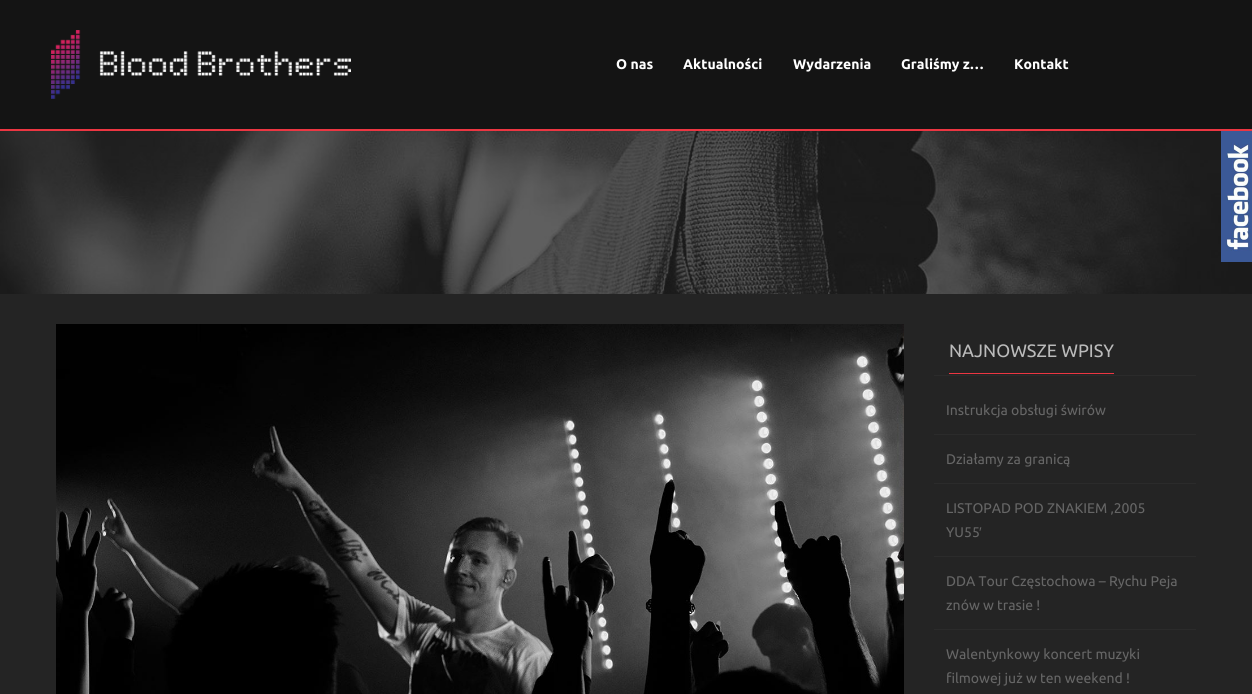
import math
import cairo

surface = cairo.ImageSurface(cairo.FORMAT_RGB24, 1252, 694)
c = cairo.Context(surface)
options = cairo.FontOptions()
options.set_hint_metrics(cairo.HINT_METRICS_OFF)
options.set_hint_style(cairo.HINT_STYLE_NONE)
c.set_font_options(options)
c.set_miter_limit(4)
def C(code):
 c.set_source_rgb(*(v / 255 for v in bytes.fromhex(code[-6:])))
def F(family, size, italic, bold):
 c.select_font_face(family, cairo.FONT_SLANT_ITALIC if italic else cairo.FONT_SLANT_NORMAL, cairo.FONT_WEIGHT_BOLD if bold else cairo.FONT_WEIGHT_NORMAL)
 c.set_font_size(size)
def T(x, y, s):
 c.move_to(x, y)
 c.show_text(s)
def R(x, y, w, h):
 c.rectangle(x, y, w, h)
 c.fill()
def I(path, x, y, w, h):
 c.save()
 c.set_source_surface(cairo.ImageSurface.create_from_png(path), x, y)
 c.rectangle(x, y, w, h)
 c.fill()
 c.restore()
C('242424')
c.paint()
C('141414')
R(0,0,1252,129)
C('ec3642')
R(0,129,1252,2)
I('1.png',51,30,300,69)
F('Ubuntu',14,0,1)
C('ffffff')
T(616,69,'O nas')
T(683,69,'Aktualności')
T(793,69,'Wydarzenia')
T(901,69,'Graliśmy z…')
T(1014,69,'Kontakt')
I('2.png',0,131,1252,163)
I('3.png',56,324,848,370)
C('2b2b2b')
R(934,375,262,1)
F('Ubuntu',18,0,0)
C('bbbbbb')
T(949,357,'NAJNOWSZE WPISY')
C('ec3642')
R(949,373,165,1)
C('2b2b2b')
R(934,434,262,1)
F('Ubuntu',14,0,0)
C('666666')
T(946,415,'Instrukcja obsługi świrów')
C('2b2b2b')
R(934,483,262,1)
C('666666')
T(946,464,'Działamy za granicą')
C('2b2b2b')
R(934,556,262,1)
C('666666')
T(946,513,'LISTOPAD POD ZNAKIEM ‚2005')
T(946,537,'YU55')
F('Liberation Sans',14,0,0)
T(979,537,'′')
C('2b2b2b')
R(934,629,262,1)
F('Ubuntu',14,0,0)
C('666666')
T(946,586,'DDA Tour Częstochowa – Rychu Peja')
T(946,610,'znów w trasie !')
T(946,659,'Walentynkowy koncert muzyki')
T(946,683,'filmowej już w ten weekend !')
I('4.png',1221,131,31,131)
surface.write_to_png('o.png')
